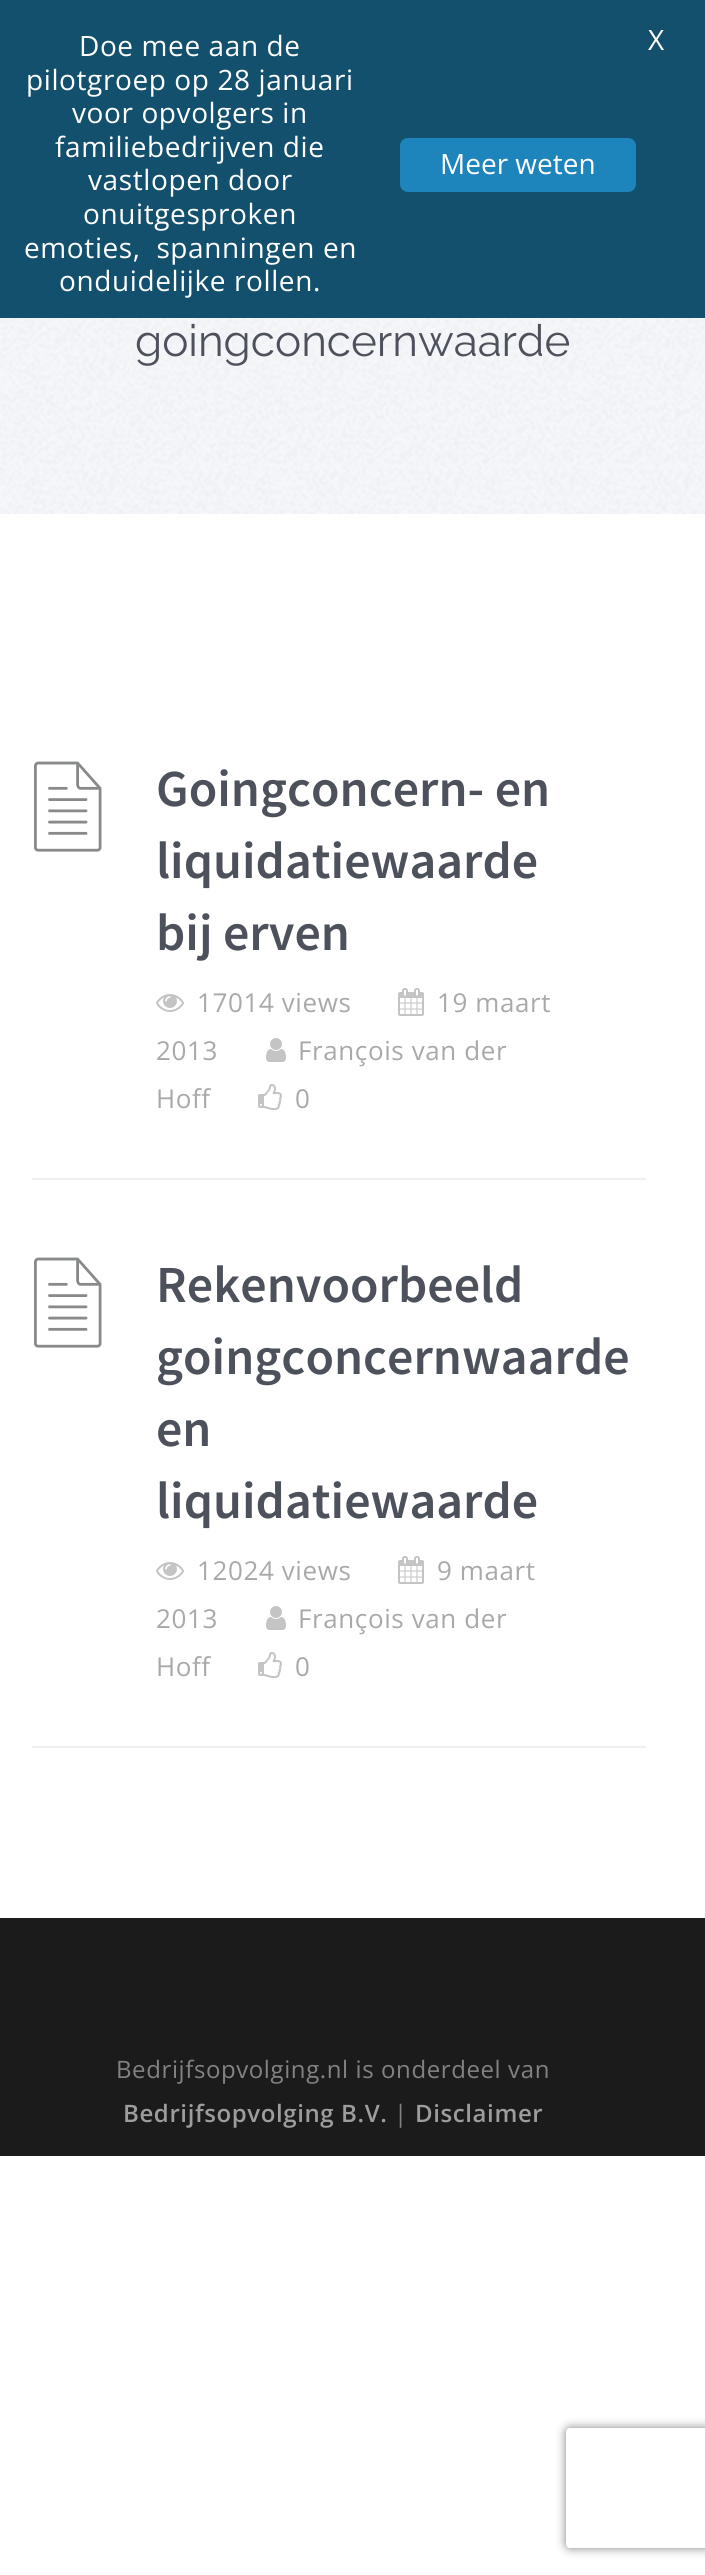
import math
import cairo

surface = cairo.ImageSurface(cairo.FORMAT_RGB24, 705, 2575)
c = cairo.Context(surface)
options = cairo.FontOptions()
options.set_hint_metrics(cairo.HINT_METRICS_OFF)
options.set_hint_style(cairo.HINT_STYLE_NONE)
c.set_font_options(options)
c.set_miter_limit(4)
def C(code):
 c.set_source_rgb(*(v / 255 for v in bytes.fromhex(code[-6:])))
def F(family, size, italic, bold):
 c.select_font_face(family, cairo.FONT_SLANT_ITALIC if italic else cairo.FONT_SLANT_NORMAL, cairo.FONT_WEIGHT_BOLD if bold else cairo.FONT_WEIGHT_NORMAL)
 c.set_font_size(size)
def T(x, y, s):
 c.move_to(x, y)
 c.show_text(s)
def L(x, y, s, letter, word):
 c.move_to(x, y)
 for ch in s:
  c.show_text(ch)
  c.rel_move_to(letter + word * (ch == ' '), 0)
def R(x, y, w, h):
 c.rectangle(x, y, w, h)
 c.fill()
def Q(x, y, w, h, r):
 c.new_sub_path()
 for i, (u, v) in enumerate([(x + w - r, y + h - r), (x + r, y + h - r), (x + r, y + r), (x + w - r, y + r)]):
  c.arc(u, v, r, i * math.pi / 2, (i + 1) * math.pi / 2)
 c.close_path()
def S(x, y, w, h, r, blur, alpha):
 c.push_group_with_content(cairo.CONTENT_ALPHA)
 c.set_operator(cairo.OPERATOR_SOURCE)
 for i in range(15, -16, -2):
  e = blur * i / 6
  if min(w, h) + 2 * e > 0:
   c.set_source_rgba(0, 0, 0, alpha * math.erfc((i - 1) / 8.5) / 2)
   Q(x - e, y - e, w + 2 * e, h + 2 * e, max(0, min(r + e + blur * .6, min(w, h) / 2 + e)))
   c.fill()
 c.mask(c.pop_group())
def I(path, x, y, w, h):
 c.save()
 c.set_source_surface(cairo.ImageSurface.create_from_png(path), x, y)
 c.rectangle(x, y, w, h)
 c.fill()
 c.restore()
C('ffffff')
c.paint()
C('13506d')
R(0,0,705,318)
F('Open Sans',28,0,0)
C('ffffff')
L(79,56,'Doe mee aan de',.6,0)
L(26,90,'pilotgroep op 28 januari',.6,0)
L(72,123,'voor opvolgers in',.6,0)
L(55,157,'familiebedrijven die',.6,0)
L(88,190,'vastlopen door',.6,0)
L(83,224,'onuitgesproken',.6,0)
L(24,258,'emoties,  spanningen en',.6,0)
L(59,291,'onduidelijke rollen.',.6,0)
C('1e84bc')
Q(400,138,236,54,8)
c.fill()
C('ffffff')
T(440,174,'Meer weten')
T(648,50,'X')
I('1.png',0,318,705,196)
F('Raleway Thin',44,0,0)
C('4d515c')
T(135,356,'goingconcernwaarde')
C('efefef')
R(32,1178,614,2)
I('2.png',34,761,68,91)
F('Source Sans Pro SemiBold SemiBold',52,0,0)
C('4d515c')
T(156,806,'Goingconcern- en')
T(156,878,'liquidatiewaarde')
T(156,950,'bij erven')
I('3.png',156,994,28,18)
F('Open Sans',26,0,0)
C('a9a9a9')
L(197,1012,'17014 views',.6,0)
I('4.png',398,988,26,28)
L(437,1012,'19 maart',.6,0)
L(156,1060,'2013',.6,0)
I('5.png',266,1038,20,24)
L(298,1060,'François van der',.6,0)
L(156,1108,'Hoff',.6,0)
I('6.png',258,1084,24,26)
L(295,1108,'0',.6,0)
C('efefef')
R(32,1746,614,2)
I('2.png',34,1257,68,91)
F('Source Sans Pro SemiBold SemiBold',52,0,0)
C('4d515c')
T(156,1302,'Rekenvoorbeeld')
T(156,1374,'goingconcernwaarde')
T(156,1446,'en')
T(156,1518,'liquidatiewaarde')
I('3.png',156,1562,28,18)
F('Open Sans',26,0,0)
C('a9a9a9')
L(197,1580,'12024 views',.6,0)
I('4.png',398,1556,26,28)
L(437,1580,'9 maart',.6,0)
L(156,1628,'2013',.6,0)
I('5.png',266,1606,20,24)
L(298,1628,'François van der',.6,0)
L(156,1676,'Hoff',.6,0)
I('6.png',258,1652,24,26)
L(295,1676,'0',.6,0)
C('1b1b1b')
R(0,1918,705,238)
F('Open Sans',24,0,0)
C('828282')
L(116,2078,'Bedrijfsopvolging.nl is onderdeel van',.6,0)
F('Open Sans SemiBold',24,0,0)
C('9e9d9d')
L(123,2122,'Bedrijfsopvolging B.V.',.6,0)
F('Open Sans',24,0,0)
C('828282')
L(394,2122,'|',.6,0)
F('Open Sans SemiBold',24,0,0)
C('9e9d9d')
L(415,2122,'Disclaimer',.6,0)
c.save()
c.set_fill_rule(cairo.FILL_RULE_EVEN_ODD)
c.new_path()
c.move_to(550,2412)
c.line_to(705,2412)
c.line_to(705,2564)
c.line_to(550,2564)
c.close_path()
c.move_to(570,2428)
c.line_to(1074,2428)
c.curve_to(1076,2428,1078,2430,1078,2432)
c.line_to(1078,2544)
c.curve_to(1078,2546,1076,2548,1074,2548)
c.line_to(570,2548)
c.curve_to(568,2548,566,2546,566,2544)
c.line_to(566,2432)
c.curve_to(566,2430,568,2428,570,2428)
c.close_path()
c.clip()
C('808080')
S(566,2428,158,120,4,5,1)
c.restore()
surface.write_to_png('o.png')
